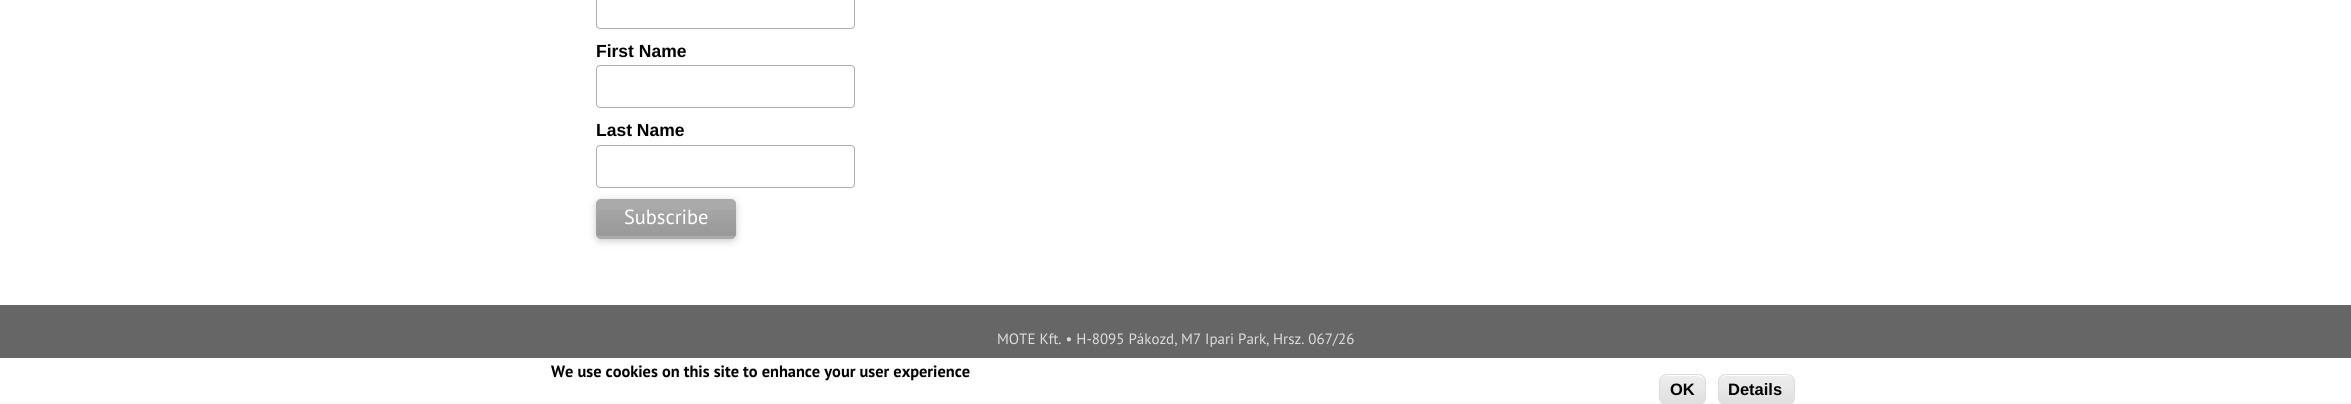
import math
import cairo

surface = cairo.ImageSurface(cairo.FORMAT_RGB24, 2351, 404)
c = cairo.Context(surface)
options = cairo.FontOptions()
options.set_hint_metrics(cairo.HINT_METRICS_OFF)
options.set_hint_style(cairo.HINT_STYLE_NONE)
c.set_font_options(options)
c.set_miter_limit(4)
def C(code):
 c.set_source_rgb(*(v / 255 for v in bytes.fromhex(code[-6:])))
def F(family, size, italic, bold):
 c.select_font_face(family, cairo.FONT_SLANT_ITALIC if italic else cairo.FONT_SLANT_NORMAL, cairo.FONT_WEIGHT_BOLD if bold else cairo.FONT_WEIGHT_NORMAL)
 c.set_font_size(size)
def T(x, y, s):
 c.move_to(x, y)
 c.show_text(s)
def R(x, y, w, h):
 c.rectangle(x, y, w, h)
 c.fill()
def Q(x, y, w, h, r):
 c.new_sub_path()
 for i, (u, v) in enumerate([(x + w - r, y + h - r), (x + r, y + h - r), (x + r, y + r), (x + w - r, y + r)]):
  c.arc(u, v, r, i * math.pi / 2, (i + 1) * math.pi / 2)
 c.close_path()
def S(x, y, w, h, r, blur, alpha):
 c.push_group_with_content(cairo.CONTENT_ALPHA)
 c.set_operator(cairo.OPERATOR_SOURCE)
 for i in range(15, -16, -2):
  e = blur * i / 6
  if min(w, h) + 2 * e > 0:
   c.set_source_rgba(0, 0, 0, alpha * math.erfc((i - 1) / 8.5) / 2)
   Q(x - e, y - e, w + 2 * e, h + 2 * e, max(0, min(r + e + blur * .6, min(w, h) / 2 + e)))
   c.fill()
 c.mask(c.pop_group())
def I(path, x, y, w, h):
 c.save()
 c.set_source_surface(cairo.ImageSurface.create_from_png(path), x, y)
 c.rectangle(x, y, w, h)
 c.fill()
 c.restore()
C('666666')
c.paint()
C('ffffff')
R(0,0,2351,305)
Q(596.5,-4.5,258,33,3.5)
C('abb0b2')
c.set_line_width(1)
c.stroke()
F('Liberation Sans',17.5,0,1)
C('000000')
T(596,57,'First Name')
Q(596.5,65.5,258,42,3.5)
C('abb0b2')
c.stroke()
C('000000')
T(596,136,'Last Name')
Q(596.5,145.5,258,42,3.5)
C('abb0b2')
c.stroke()
C('000000')
S(596,201,140,40,5,4,.21)
C('aaaaaa')
Q(596,199,140,40,5)
c.fill()
I('1.png',596,210,141,26)
F('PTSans',18.75,0,0)
C('ffffff')
T(624,224,'Subscribe')
F('PTSans',13.75,0,0)
C('dddddd')
T(997,344,'MOTE Kft. • H-8095 Pákozd, M7 Ipari Park, Hrsz. 067/26')
C('ffffff')
R(0,358,2351,44)
C('fafafa')
R(0,402,2351,2)
F('PTSans',15,0,1)
C('000000')
T(551,377,'We use cookies on this site to enhance your user experience')
c.save()
Q(1659,374,47,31,8)
c.clip()
gradient = cairo.LinearGradient(1660,375,1660,404)
gradient.add_color_stop_rgba(.05,0.929,0.929,0.929,1)
gradient.add_color_stop_rgba(1,0.875,0.875,0.875,1)
c.set_source(gradient)
R(1659,375,47,29)
c.restore()
C('ffffff')
c.set_fill_rule(cairo.FILL_RULE_EVEN_ODD)
c.new_path()
c.move_to(1666,376)
c.line_to(1693,376)
c.curve_to(1703,376,1705,378,1705,385)
c.curve_to(1705,375,1703,375,1694,375)
c.line_to(1672,375)
c.curve_to(1662,375,1660,375,1660,385)
c.curve_to(1660,380,1661,376,1666,376)
c.close_path()
c.move_to(1705,397)
c.line_to(1704,400)
c.close_path()
c.move_to(1660,400)
c.line_to(1660,397)
c.close_path()
c.fill()
Q(1659.5,374.5,46,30,7.5)
C('dcdcdc')
c.stroke()
F('Liberation Sans',16.5,0,1)
C('000000')
T(1670,395,'OK')
c.save()
c.set_fill_rule(cairo.FILL_RULE_WINDING)
Q(1718,374,77,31,8)
c.clip()
gradient = cairo.LinearGradient(1719,375,1719,404)
gradient.add_color_stop_rgba(.05,0.929,0.929,0.929,1)
gradient.add_color_stop_rgba(1,0.875,0.875,0.875,1)
c.set_source(gradient)
R(1718,375,77,29)
c.restore()
C('ffffff')
c.set_fill_rule(cairo.FILL_RULE_WINDING)
c.new_path()
c.move_to(1725,376)
c.line_to(1788,376)
c.curve_to(1791,376,1794,379,1794,382)
c.curve_to(1794,373,1784,375,1778,375)
c.line_to(1736,375)
c.curve_to(1729,375,1719,373,1719,382)
c.curve_to(1719,379,1722,376,1725,376)
c.close_path()
c.fill()
Q(1718.5,374.5,76,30,7.5)
C('dcdcdc')
c.stroke()
C('000000')
T(1728,395,'Details')
surface.write_to_png('o.png')
